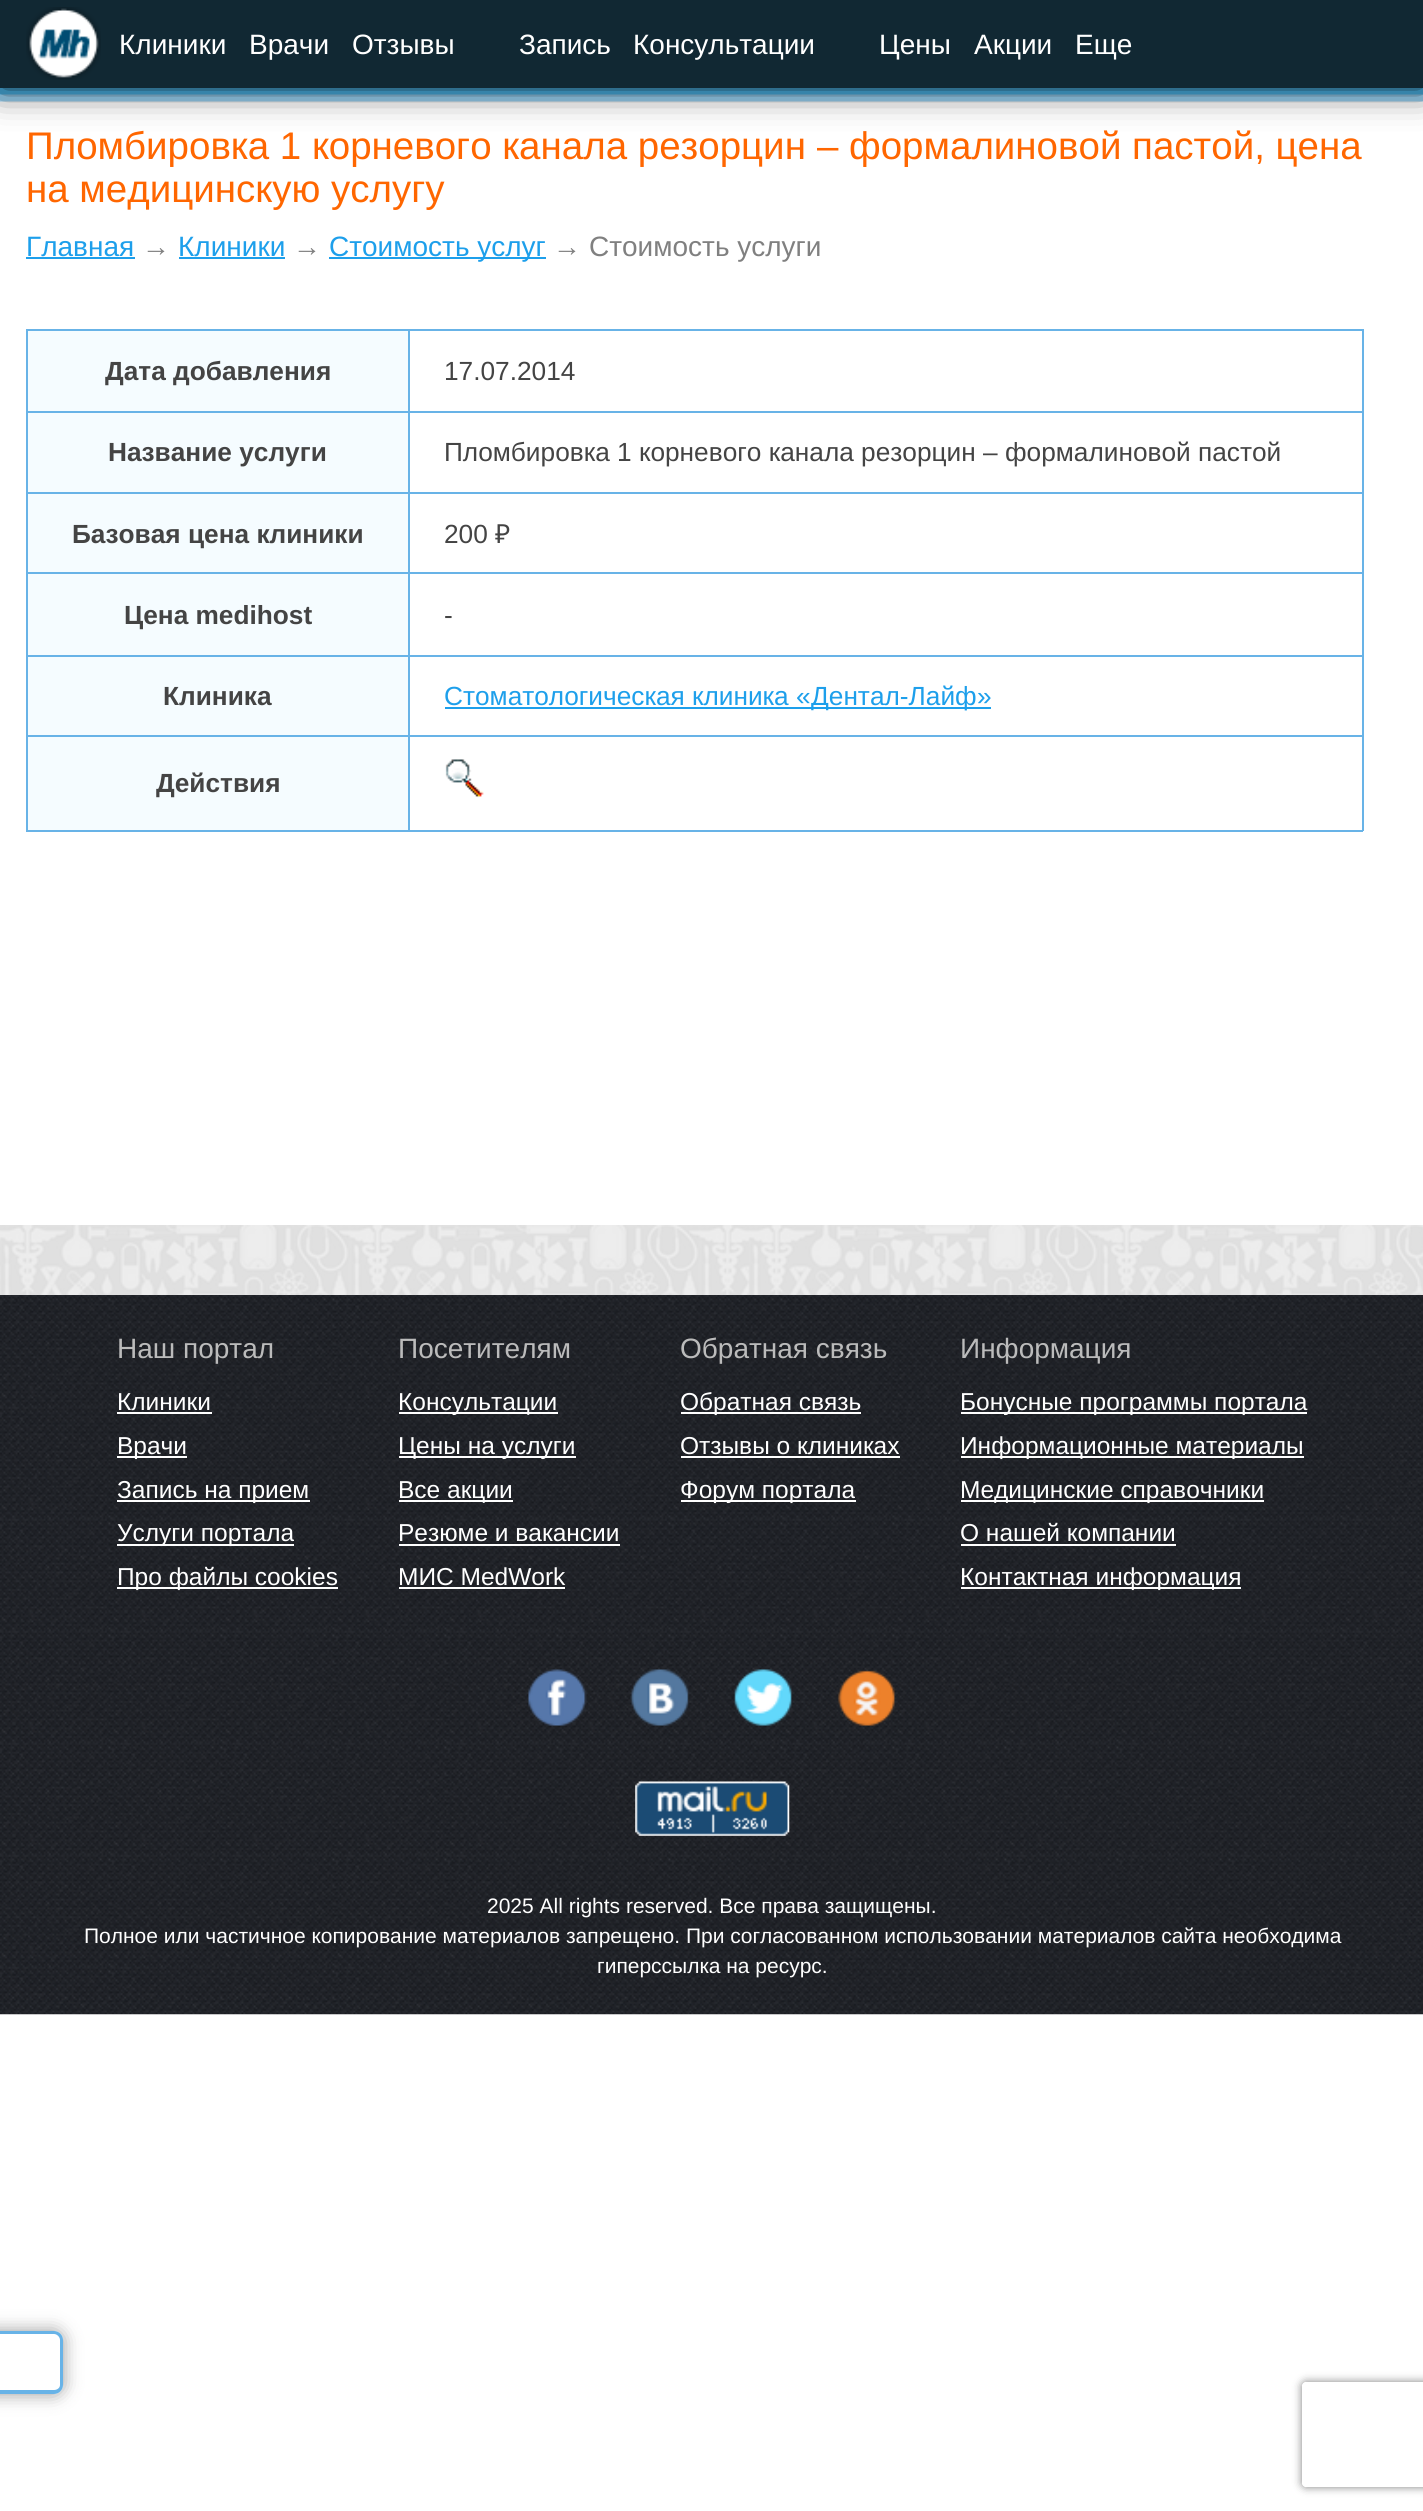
import math
import cairo

surface = cairo.ImageSurface(cairo.FORMAT_RGB24, 1423, 2511)
c = cairo.Context(surface)
options = cairo.FontOptions()
options.set_hint_metrics(cairo.HINT_METRICS_OFF)
options.set_hint_style(cairo.HINT_STYLE_NONE)
c.set_font_options(options)
c.set_miter_limit(4)
def C(code):
 c.set_source_rgb(*(v / 255 for v in bytes.fromhex(code[-6:])))
def F(family, size, italic, bold):
 c.select_font_face(family, cairo.FONT_SLANT_ITALIC if italic else cairo.FONT_SLANT_NORMAL, cairo.FONT_WEIGHT_BOLD if bold else cairo.FONT_WEIGHT_NORMAL)
 c.set_font_size(size)
def T(x, y, s):
 c.move_to(x, y)
 c.show_text(s)
def R(x, y, w, h):
 c.rectangle(x, y, w, h)
 c.fill()
def Q(x, y, w, h, r):
 c.new_sub_path()
 for i, (u, v) in enumerate([(x + w - r, y + h - r), (x + r, y + h - r), (x + r, y + r), (x + w - r, y + r)]):
  c.arc(u, v, r, i * math.pi / 2, (i + 1) * math.pi / 2)
 c.close_path()
def S(x, y, w, h, r, blur, alpha):
 c.push_group_with_content(cairo.CONTENT_ALPHA)
 c.set_operator(cairo.OPERATOR_SOURCE)
 for i in range(15, -16, -2):
  e = blur * i / 6
  if min(w, h) + 2 * e > 0:
   c.set_source_rgba(0, 0, 0, alpha * math.erfc((i - 1) / 8.5) / 2)
   Q(x - e, y - e, w + 2 * e, h + 2 * e, max(0, min(r + e + blur * .6, min(w, h) / 2 + e)))
   c.fill()
 c.mask(c.pop_group())
def I(path, x, y, w, h):
 c.save()
 c.set_source_surface(cairo.ImageSurface.create_from_png(path), x, y)
 c.rectangle(x, y, w, h)
 c.fill()
 c.restore()
C('ffffff')
c.paint()
I('1.png',0,0,1423,102)
c.save()
c.set_fill_rule(cairo.FILL_RULE_EVEN_ODD)
c.new_path()
c.move_to(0,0)
c.line_to(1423,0)
c.line_to(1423,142)
c.line_to(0,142)
c.close_path()
c.move_to(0,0)
c.line_to(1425,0)
c.line_to(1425,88)
c.line_to(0,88)
c.close_path()
c.clip()
C('000000')
S(0,0,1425,88,0,17.5,.9)
c.restore()
c.set_source_rgba(0,0,0,0.8)
R(0,0,1423,88)
I('2.png',26,7,75,73)
F('Arimo',28,0,0)
C('ffffff')
T(119,54,'Клиники')
T(249,54,'Врачи')
T(352,54,'Отзывы')
T(519,54,'Запись')
T(633,54,'Консультации')
T(879,54,'Цены')
T(974,54,'Акции')
T(1075,54,'Еще')
F('Arimo',38.5,0,0)
C('ff6600')
T(26,159,'Пломбировка 1 корневого канала резорцин')
F('Liberation Sans',38.5,0,0)
T(817,159,'–')
F('Arimo',38.5,0,0)
T(849,159,'формалиновой пастой, цена')
T(26,202,'на медицинскую услугу')
F('Arimo',28,0,0)
C('1d9feb')
T(26,256,'Главная')
R(26,257,109,2)
F('Liberation Sans',28,0,0)
C('808080')
T(142,256,'→')
F('Arimo',28,0,0)
C('1d9feb')
T(178,256,'Клиники')
R(179,257,106,2)
F('Liberation Sans',28,0,0)
C('808080')
T(293,256,'→')
C('1d9feb')
R(329,257,217,2)
F('Arimo',28,0,0)
T(329,256,'Стоимость услуг')
F('Liberation Sans',28,0,0)
C('808080')
T(553,256,'→')
F('Arimo',28,0,0)
T(589,256,'Стоимость услуги')
C('f5fcff')
R(28,331,380,80)
C('68b3e7')
R(408,329,955,2)
R(408,411,955,2)
R(408,492,955,2)
R(408,572,955,2)
R(408,655,955,2)
R(408,735,955,2)
R(1362,735,2,96)
R(408,830,955,2)
R(408,735,2,96)
R(26,735,384,2)
R(408,655,2,82)
R(26,655,384,2)
R(408,572,2,84)
R(26,572,384,2)
R(408,492,2,82)
R(26,492,384,2)
R(408,411,2,83)
R(26,411,384,2)
R(408,329,2,84)
R(26,329,384,2)
R(26,830,384,2)
R(26,735,2,96)
R(26,655,2,82)
R(26,572,2,84)
R(26,492,2,82)
R(26,411,2,83)
R(26,329,2,84)
F('Arimo',26.25,0,1)
C('444444')
T(105,380,'Дата добавления')
C('68b3e7')
R(1362,655,2,82)
R(1362,572,2,84)
R(1362,492,2,82)
R(1362,411,2,83)
R(1362,329,2,84)
F('Arimo',26.25,0,0)
C('444444')
T(444,380,'17.07.2014')
C('f5fcff')
R(28,413,380,79)
F('Arimo',26.25,0,1)
C('444444')
T(108,461,'Название услуги')
F('Arimo',26.25,0,0)
T(444,461,'Пломбировка 1 корневого канала резорцин')
F('Liberation Sans',26.25,0,0)
T(983,461,'–')
F('Arimo',26.25,0,0)
T(1005,461,'формалиновой пастой')
C('f5fcff')
R(28,494,380,78)
F('Arimo',26.25,0,1)
C('444444')
T(72,543,'Базовая цена клиники')
F('Arimo',26.25,0,0)
T(444,543,'200')
F('Noto Sans',26.25,0,0)
T(495,543,'₽')
C('f5fcff')
R(28,574,380,81)
F('Arimo',26.25,0,1)
C('444444')
T(124,624,'Цена medihost')
F('Arimo',26.25,0,0)
T(444,624,'-')
C('f5fcff')
R(28,657,380,78)
F('Arimo',26.25,0,1)
C('444444')
T(163,705,'Клиника')
F('Arimo',26.25,0,0)
C('1d9feb')
T(444,705,'Стоматологическая клиника')
F('Liberation Sans',26.25,0,0)
T(796,705,'«')
R(445,707,546,2)
F('Arimo',26.25,0,0)
T(811,705,'Дентал-Лайф')
F('Liberation Sans',26.25,0,0)
T(977,705,'»')
C('f5fcff')
R(28,737,380,93)
F('Arimo',26.25,0,1)
C('444444')
T(156,792,'Действия')
I('3.png',445,759,39,39)
I('4.png',0,1225,1423,70)
I('5.png',0,1295,1423,720)
F('Arimo',28,0,0)
C('bbbbbb')
T(117,1358,'Наш портал')
F('Arimo',24.5,0,0)
C('ffffff')
T(117,1410,'Клиники')
R(117,1412,95,2)
R(117,1456,70,2)
T(117,1454,'Врачи')
R(117,1500,193,2)
T(117,1498,'Запись на прием')
R(117,1544,177,2)
T(117,1541,'Услуги портала')
R(117,1587,221,2)
T(117,1585,'Про файлы cookies')
F('Arimo',28,0,0)
C('bbbbbb')
T(398,1358,'Посетителям')
C('ffffff')
R(399,1412,159,2)
F('Arimo',24.5,0,0)
T(398,1410,'Консультации')
R(399,1456,177,2)
T(398,1454,'Цены на услуги')
R(399,1500,114,2)
T(398,1498,'Все акции')
T(398,1541,'Резюме и вакансии')
R(399,1544,221,2)
T(398,1585,'МИС MedWork')
R(399,1587,166,2)
F('Arimo',28,0,0)
C('bbbbbb')
T(680,1358,'Обратная связь')
C('ffffff')
R(681,1412,180,2)
F('Arimo',24.5,0,0)
T(680,1410,'Обратная связь')
T(680,1454,'Отзывы о клиниках')
R(681,1456,219,2)
R(681,1500,175,2)
T(680,1498,'Форум портала')
F('Arimo',28,0,0)
C('bbbbbb')
T(960,1358,'Информация')
C('ffffff')
R(961,1412,346,2)
F('Arimo',24.5,0,0)
T(960,1410,'Бонусные программы портала')
R(961,1456,343,2)
T(960,1454,'Информационные материалы')
R(961,1500,303,2)
T(960,1498,'Медицинские справочники')
T(960,1541,'О нашей компании')
R(961,1544,215,2)
R(961,1587,280,2)
T(960,1585,'Контактная информация')
I('6.png',528,1669,59,57)
I('7.png',630,1669,59,57)
I('8.png',734,1669,58,57)
I('9.png',837,1670,58,56)
I('10.png',635,1781,155,55)
F('Arimo',21,0,0)
T(487,1913,'2025 All rights reserved. Все права защищены.')
T(84,1943,'Полное или частичное копирование материалов запрещено. При согласованном использовании материалов сайта необходима')
T(597,1973,'гиперссылка на ресурс.')
C('000000')
S(-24,2331,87,63,9,9,.4)
C('ffffff')
c.new_path()
c.move_to(-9,2331)
c.line_to(54,2331)
c.curve_to(59,2331,63,2335,63,2340)
c.line_to(63,2385)
c.curve_to(63,2390,59,2394,54,2394)
c.line_to(-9,2394)
c.close_path()
c.fill()
C('68b3e7')
c.set_fill_rule(cairo.FILL_RULE_EVEN_ODD)
c.new_path()
c.move_to(-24,2331)
c.line_to(54,2331)
c.curve_to(59,2331,63,2335,63,2340)
c.line_to(63,2385)
c.curve_to(63,2390,59,2394,54,2394)
c.line_to(-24,2394)
c.close_path()
c.move_to(-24,2334)
c.line_to(54,2334)
c.curve_to(57,2334,60,2337,60,2340)
c.line_to(60,2385)
c.curve_to(60,2388,57,2390,54,2390)
c.line_to(-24,2390)
c.close_path()
c.fill()
c.save()
c.new_path()
c.move_to(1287,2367)
c.line_to(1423,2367)
c.line_to(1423,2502)
c.line_to(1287,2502)
c.close_path()
c.move_to(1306,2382)
c.line_to(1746,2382)
c.curve_to(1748,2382,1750,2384,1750,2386)
c.line_to(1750,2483)
c.curve_to(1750,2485,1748,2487,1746,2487)
c.line_to(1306,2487)
c.curve_to(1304,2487,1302,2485,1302,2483)
c.line_to(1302,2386)
c.curve_to(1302,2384,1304,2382,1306,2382)
c.close_path()
c.clip()
C('808080')
S(1302,2382,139,105,4,4.5,1)
c.restore()
surface.write_to_png('o.png')
